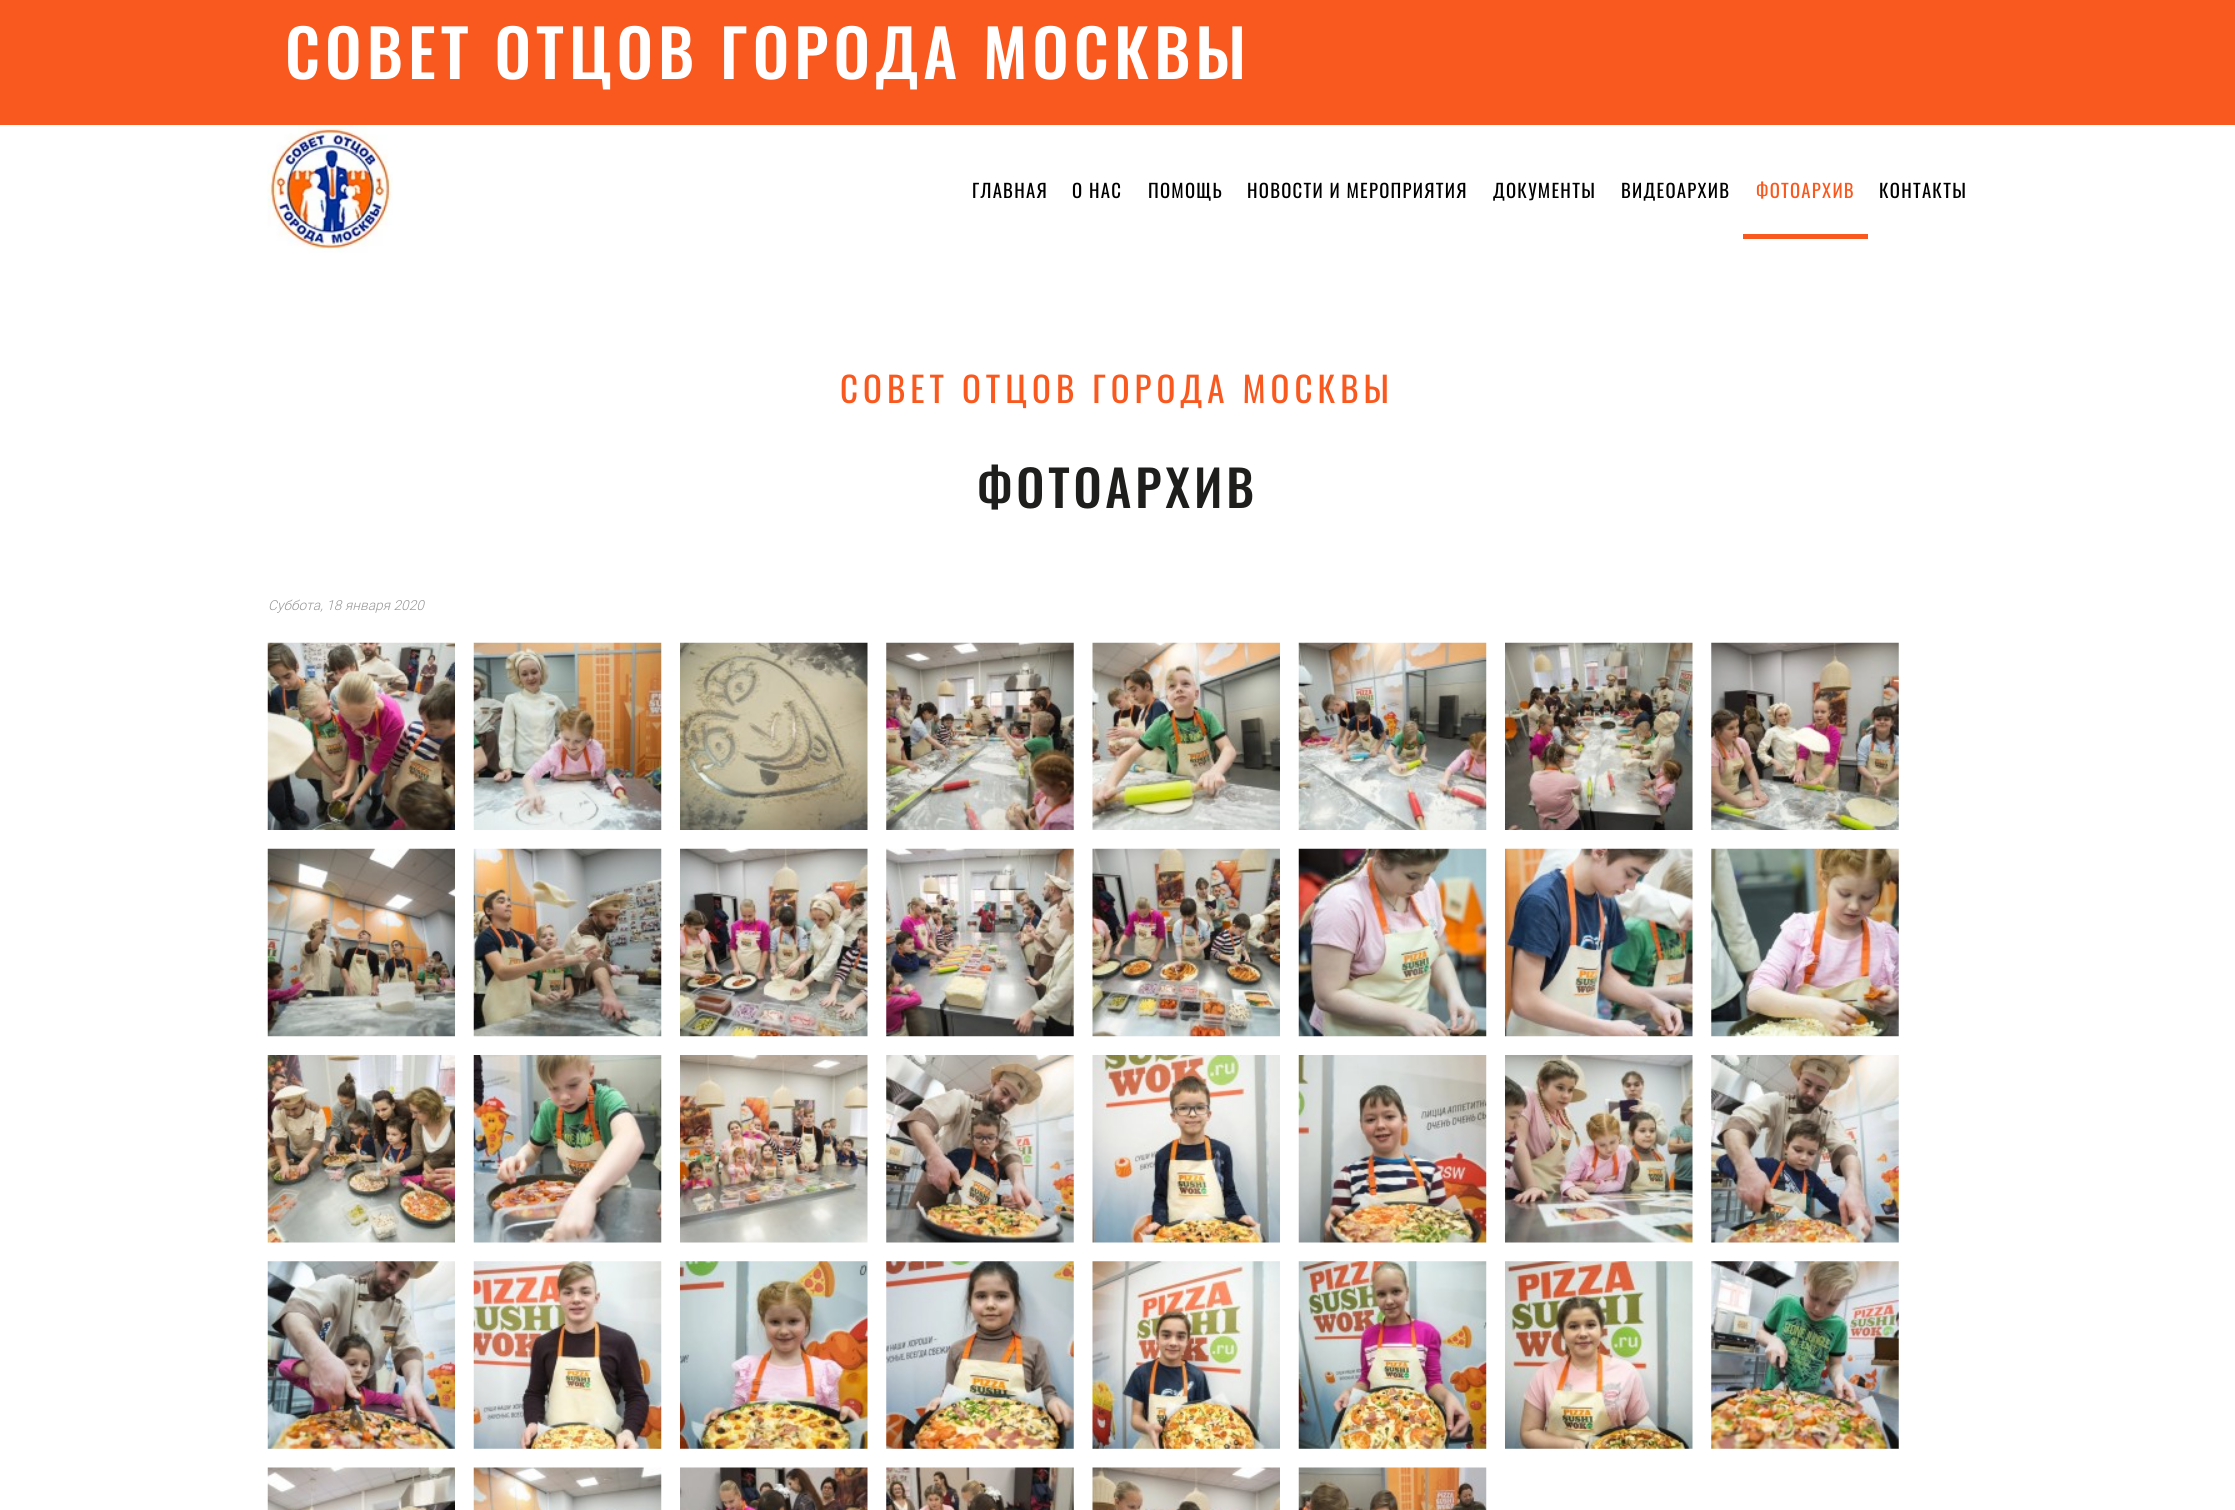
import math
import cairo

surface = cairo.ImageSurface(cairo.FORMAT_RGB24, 2235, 1510)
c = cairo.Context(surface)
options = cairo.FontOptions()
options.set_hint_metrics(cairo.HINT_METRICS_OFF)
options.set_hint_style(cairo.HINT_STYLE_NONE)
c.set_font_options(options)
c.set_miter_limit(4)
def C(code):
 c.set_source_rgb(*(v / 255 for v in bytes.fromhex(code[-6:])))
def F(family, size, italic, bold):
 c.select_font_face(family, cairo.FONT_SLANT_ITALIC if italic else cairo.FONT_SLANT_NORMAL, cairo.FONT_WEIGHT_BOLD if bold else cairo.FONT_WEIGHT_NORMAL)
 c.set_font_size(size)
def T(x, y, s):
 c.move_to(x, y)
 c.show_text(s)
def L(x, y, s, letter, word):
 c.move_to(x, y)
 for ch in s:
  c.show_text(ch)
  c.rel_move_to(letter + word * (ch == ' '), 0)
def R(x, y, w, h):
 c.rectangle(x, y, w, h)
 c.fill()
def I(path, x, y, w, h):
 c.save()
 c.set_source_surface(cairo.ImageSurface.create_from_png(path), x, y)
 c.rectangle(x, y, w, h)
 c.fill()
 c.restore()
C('ffffff')
c.paint()
C('f9591e')
R(0,0,2235,125)
F('Oswald Medium',65,0,0)
C('ffffff')
L(285,79,'СОВЕТ ОТЦОВ ГОРОДА МОСКВЫ',5,0)
I('1.png',267,125,126,128)
F('Oswald',18.75,0,0)
C('000000')
L(972,198,'ГЛАВНАЯ',1.25,0)
L(1072,198,'О НАС',1.25,0)
L(1148,198,'ПОМОЩЬ',1.25,0)
L(1247,198,'НОВОСТИ И МЕРОПРИЯТИЯ',1.25,0)
L(1493,198,'ДОКУМЕНТЫ',1.25,0)
L(1621,198,'ВИДЕОАРХИВ',1.25,0)
C('f9591e')
L(1756,198,'ФОТОАРХИВ',1.25,0)
R(1743,234,125,5)
C('000000')
L(1879,198,'КОНТАКТЫ',1.25,0)
F('Oswald',35,0,0)
C('f9591e')
L(840,403,'СОВЕТ ОТЦОВ ГОРОДА МОСКВЫ',5,0)
F('Oswald Medium',50,0,0)
C('1e1f1c')
L(977,508,'ФОТОАРХИВ',3.75,0)
F('Roboto Light',13.75,1,0)
C('969696')
T(268,610,'Суббота, 18 января 2020')
I('2.png',267,642,188,188)
I('3.png',473,642,189,188)
I('4.png',680,642,188,188)
I('5.png',886,642,188,188)
I('6.png',1092,642,188,188)
I('7.png',1298,642,189,188)
I('8.png',1505,642,188,188)
I('9.png',1711,642,188,188)
I('10.png',267,848,188,189)
I('11.png',473,848,189,189)
I('12.png',680,848,188,189)
I('13.png',886,848,188,189)
I('14.png',1092,848,188,189)
I('15.png',1298,848,189,189)
I('16.png',1505,848,188,189)
I('17.png',1711,848,188,189)
I('18.png',267,1055,188,188)
I('19.png',473,1055,189,188)
I('20.png',680,1055,188,188)
I('21.png',886,1055,188,188)
I('22.png',1092,1055,188,188)
I('23.png',1298,1055,189,188)
I('24.png',1505,1055,188,188)
I('25.png',1711,1055,188,188)
I('26.png',267,1261,188,188)
I('27.png',473,1261,189,188)
I('28.png',680,1261,188,188)
I('29.png',886,1261,188,188)
I('30.png',1092,1261,188,188)
I('31.png',1298,1261,189,188)
I('32.png',1505,1261,188,188)
I('33.png',1711,1261,188,188)
I('34.png',267,1467,188,43)
I('35.png',473,1467,189,43)
I('36.png',680,1467,188,43)
I('37.png',886,1467,188,43)
I('38.png',1092,1467,188,43)
I('39.png',1298,1467,189,43)
surface.write_to_png('o.png')
